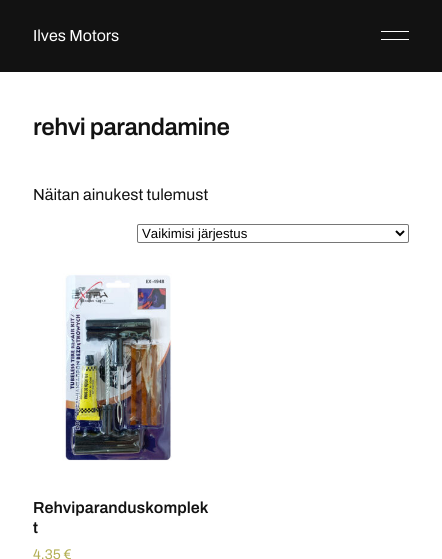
import math
import cairo

surface = cairo.ImageSurface(cairo.FORMAT_RGB24, 442, 559)
c = cairo.Context(surface)
options = cairo.FontOptions()
options.set_hint_metrics(cairo.HINT_METRICS_OFF)
options.set_hint_style(cairo.HINT_STYLE_NONE)
c.set_font_options(options)
c.set_miter_limit(4)
def C(code):
 c.set_source_rgb(*(v / 255 for v in bytes.fromhex(code[-6:])))
def F(family, size, italic, bold):
 c.select_font_face(family, cairo.FONT_SLANT_ITALIC if italic else cairo.FONT_SLANT_NORMAL, cairo.FONT_WEIGHT_BOLD if bold else cairo.FONT_WEIGHT_NORMAL)
 c.set_font_size(size)
def T(x, y, s):
 c.move_to(x, y)
 c.show_text(s)
def L(x, y, s, letter, word):
 c.move_to(x, y)
 for ch in s:
  c.show_text(ch)
  c.rel_move_to(letter + word * (ch == ' '), 0)
def R(x, y, w, h):
 c.rectangle(x, y, w, h)
 c.fill()
def Q(x, y, w, h, r):
 c.new_sub_path()
 for i, (u, v) in enumerate([(x + w - r, y + h - r), (x + r, y + h - r), (x + r, y + r), (x + w - r, y + r)]):
  c.arc(u, v, r, i * math.pi / 2, (i + 1) * math.pi / 2)
 c.close_path()
def I(path, x, y, w, h):
 c.save()
 c.set_source_surface(cairo.ImageSurface.create_from_png(path), x, y)
 c.rectangle(x, y, w, h)
 c.fill()
 c.restore()
C('ffffff')
c.paint()
C('121212')
R(0,0,442,72)
F('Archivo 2 SemiBold',16,0,0)
C('ffffff')
T(33,41,'Ilves Motors')
R(381,31,28,1)
R(381,39,28,1)
F('Archivo SemiBold',24,0,0)
C('121212')
L(33,135,'rehvi parandamine',-.5,0)
F('Archivo 2 SemiBold',16,0,0)
T(33,200,'Näitan ainukest tulemust')
Q(137.5,224.5,271,18,1.5)
C('767676')
c.set_line_width(1)
c.stroke()
c.new_path()
c.move_to(396,231)
c.line_to(400,235)
c.line_to(404,231)
C('000000')
c.set_line_width(2)
c.stroke()
F('Liberation Sans',13.25,0,0)
T(142,238,'Vaikimisi järjestus')
I('1.png',62,273,110,188)
F('Archivo SemiBold',16,0,0)
C('121212')
T(33,513,'Rehviparanduskomplek')
T(33,533,'t')
F('Archivo 2 SemiBold',14,0,0)
C('b3af54')
T(33,559,'4,35 €')
surface.write_to_png('o.png')
